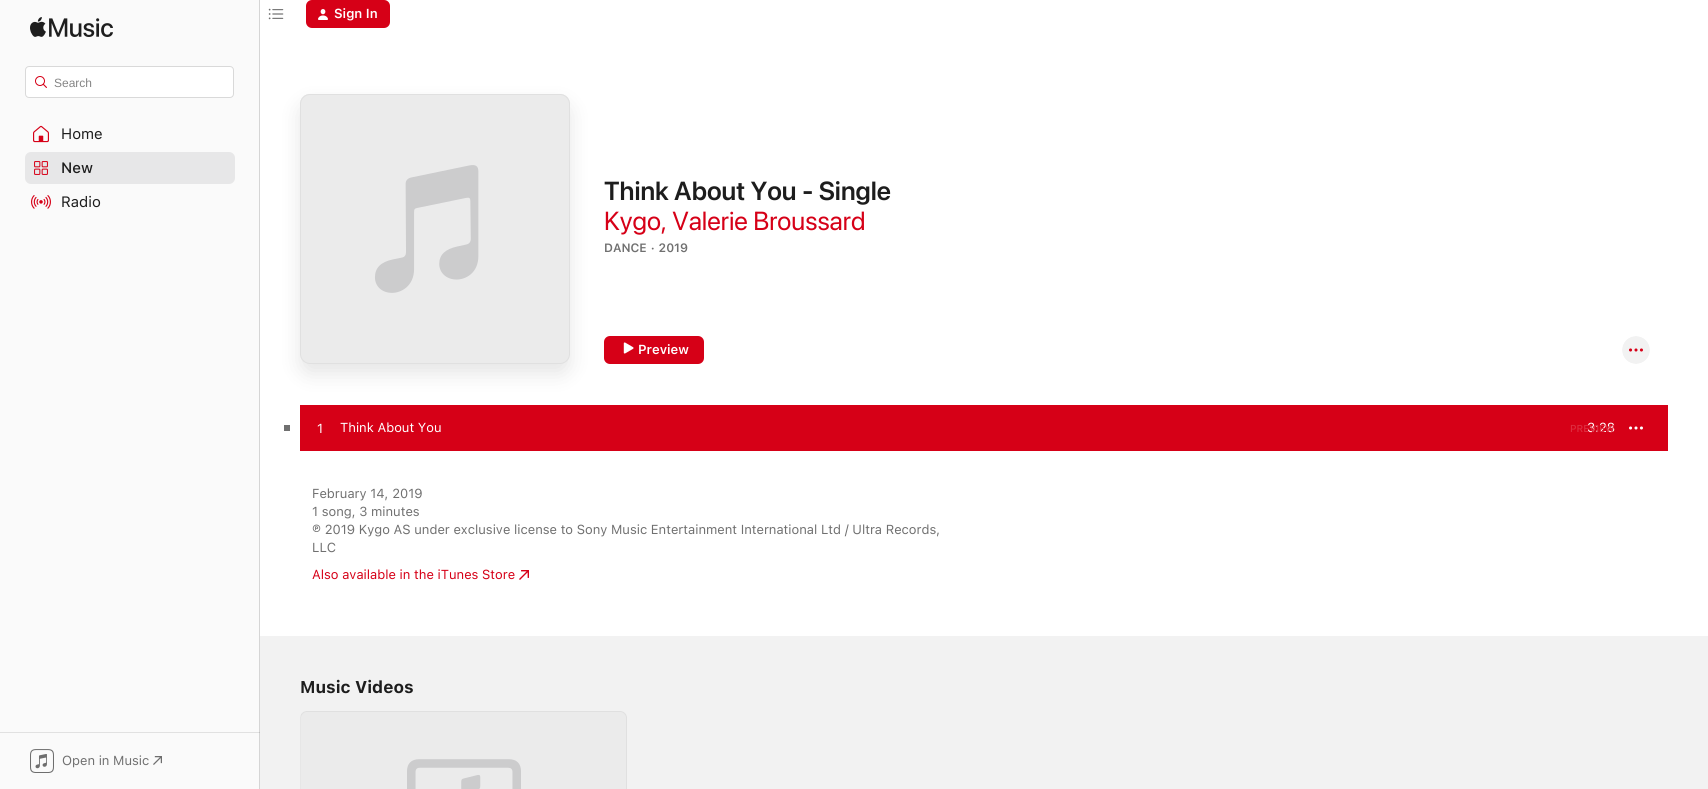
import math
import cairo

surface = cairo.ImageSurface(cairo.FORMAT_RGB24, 1708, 789)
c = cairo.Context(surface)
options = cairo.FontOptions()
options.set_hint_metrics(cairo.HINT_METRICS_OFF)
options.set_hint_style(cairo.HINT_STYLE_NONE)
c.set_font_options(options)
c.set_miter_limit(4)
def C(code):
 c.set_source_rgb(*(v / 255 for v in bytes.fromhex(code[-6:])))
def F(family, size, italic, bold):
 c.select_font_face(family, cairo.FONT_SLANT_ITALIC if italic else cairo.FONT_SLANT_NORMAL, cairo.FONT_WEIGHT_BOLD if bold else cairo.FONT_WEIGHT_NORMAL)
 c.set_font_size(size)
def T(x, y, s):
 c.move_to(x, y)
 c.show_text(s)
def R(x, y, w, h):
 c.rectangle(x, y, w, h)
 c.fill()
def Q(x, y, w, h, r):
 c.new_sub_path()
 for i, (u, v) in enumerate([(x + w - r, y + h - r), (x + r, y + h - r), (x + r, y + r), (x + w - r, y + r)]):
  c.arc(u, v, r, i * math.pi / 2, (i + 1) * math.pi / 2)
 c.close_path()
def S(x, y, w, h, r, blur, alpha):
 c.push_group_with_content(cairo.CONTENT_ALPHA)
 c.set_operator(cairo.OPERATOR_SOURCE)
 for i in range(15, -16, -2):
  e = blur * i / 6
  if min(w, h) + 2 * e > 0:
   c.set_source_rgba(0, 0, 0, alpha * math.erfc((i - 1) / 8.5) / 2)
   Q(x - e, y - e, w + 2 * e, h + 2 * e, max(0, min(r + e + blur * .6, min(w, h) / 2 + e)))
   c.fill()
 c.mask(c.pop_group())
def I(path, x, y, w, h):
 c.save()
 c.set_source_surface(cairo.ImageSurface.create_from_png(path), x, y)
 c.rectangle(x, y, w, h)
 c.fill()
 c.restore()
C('ffffff')
c.paint()
I('1.png',268,8,16,12)
C('d60017')
Q(306,0,84,28,6)
c.fill()
I('2.png',318,9,10,11)
F('SF SemiBold',13,0,0)
C('ffffff')
T(334,18,'Sign In')
C('fafafa')
R(0,0,259,789)
C('e1e1e1')
R(0,732,260,1)
C('d5d5d5')
R(259,0,1,789)
C('c0c0c0')
R(259,732,1,1)
I('3.png',30,17,83,20)
C('ffffff')
Q(25.5,66.5,208,31,3.5)
c.fill_preserve()
C('d9d9d9')
c.set_line_width(1)
c.stroke()
I('4.png',35,76,12,12)
F('Liberation Sans',12,0,0)
C('858585')
T(54,87,'Search')
I('5.png',33,125,16,18)
F('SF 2',15,0,0)
C('1d1d1d')
T(61,139,'Home')
C('e7e7e8')
Q(25,152,210,32,6)
c.fill()
I('6.png',34,161,14,14)
F('SF Medium',15,0,0)
C('1d1d1d')
T(61,173,'New')
I('7.png',31,195,20,14)
F('SF 2',15,0,0)
T(61,207,'Radio')
I('8.png',30,749,24,24)
F('SF 2',13,0,0)
C('707070')
T(62,765,'Open in Music')
I('9.png',153,756,9,9)
C('000000')
S(300,104,270,270,10,10,.1)
C('ebebeb')
Q(300,94,270,270,10)
c.fill()
I('10.png',300,94,270,199)
Q(300.5,94.5,269,269,9.5)
c.set_source_rgba(0.502,0.502,0.502,0.1)
c.stroke()
F('SF 2 SemiBold',26,0,0)
C('1d1d1d')
T(604,200,'Think About You - Single')
F('SF',26,0,0)
C('d60017')
T(604,230,'Kygo, Valerie Broussard')
F('SF SemiBold',12,0,0)
C('707070')
T(604,252,'DANCE · 2019')
C('d60017')
Q(604,336,100,28,6)
c.fill()
I('11.png',623,342,11,12)
F('SF SemiBold',13,0,0)
C('ffffff')
T(638,354,'Preview')
I('12.png',1622,336,28,28)
C('d60017')
R(300,405,1368,46)
C('707070')
R(284,425,6,6)
F('SF 2',13,0,0)
C('ffffff')
T(317,433,'1')
T(340,432,'Think About You')
T(1587,432,'3:28')
F('SF Medium',10,0,0)
C('dd2d40')
T(1570,432,'PREVIEW')
I('13.png',1629,426,14,4)
F('SF 2',13,0,0)
C('707070')
T(312,498,'February 14, 2019')
T(312,516,'1 song, 3 minutes')
T(312,534,'℗ 2019 Kygo AS under exclusive license to Sony Music Entertainment International Ltd / Ultra Records,')
T(312,552,'LLC')
C('d60017')
T(312,579,'Also available in the iTunes Store')
I('14.png',519,570,10,10)
C('f2f2f2')
R(260,636,1448,153)
F('SF',17,0,1)
C('1d1d1d')
T(300,693,'Music Videos')
c.save()
Q(300,711,327,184,7)
c.clip()
C('ebebeb')
c.new_path()
c.move_to(301,711)
c.line_to(620,711)
c.curve_to(624,711,627,714,627,718)
c.line_to(627,789)
c.line_to(301,789)
c.close_path()
c.fill()
c.restore()
I('15.png',407,759,114,30)
Q(300.5,711.5,326,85,6.5)
c.set_source_rgba(0.502,0.502,0.502,0.1)
c.stroke()
surface.write_to_png('o.png')
